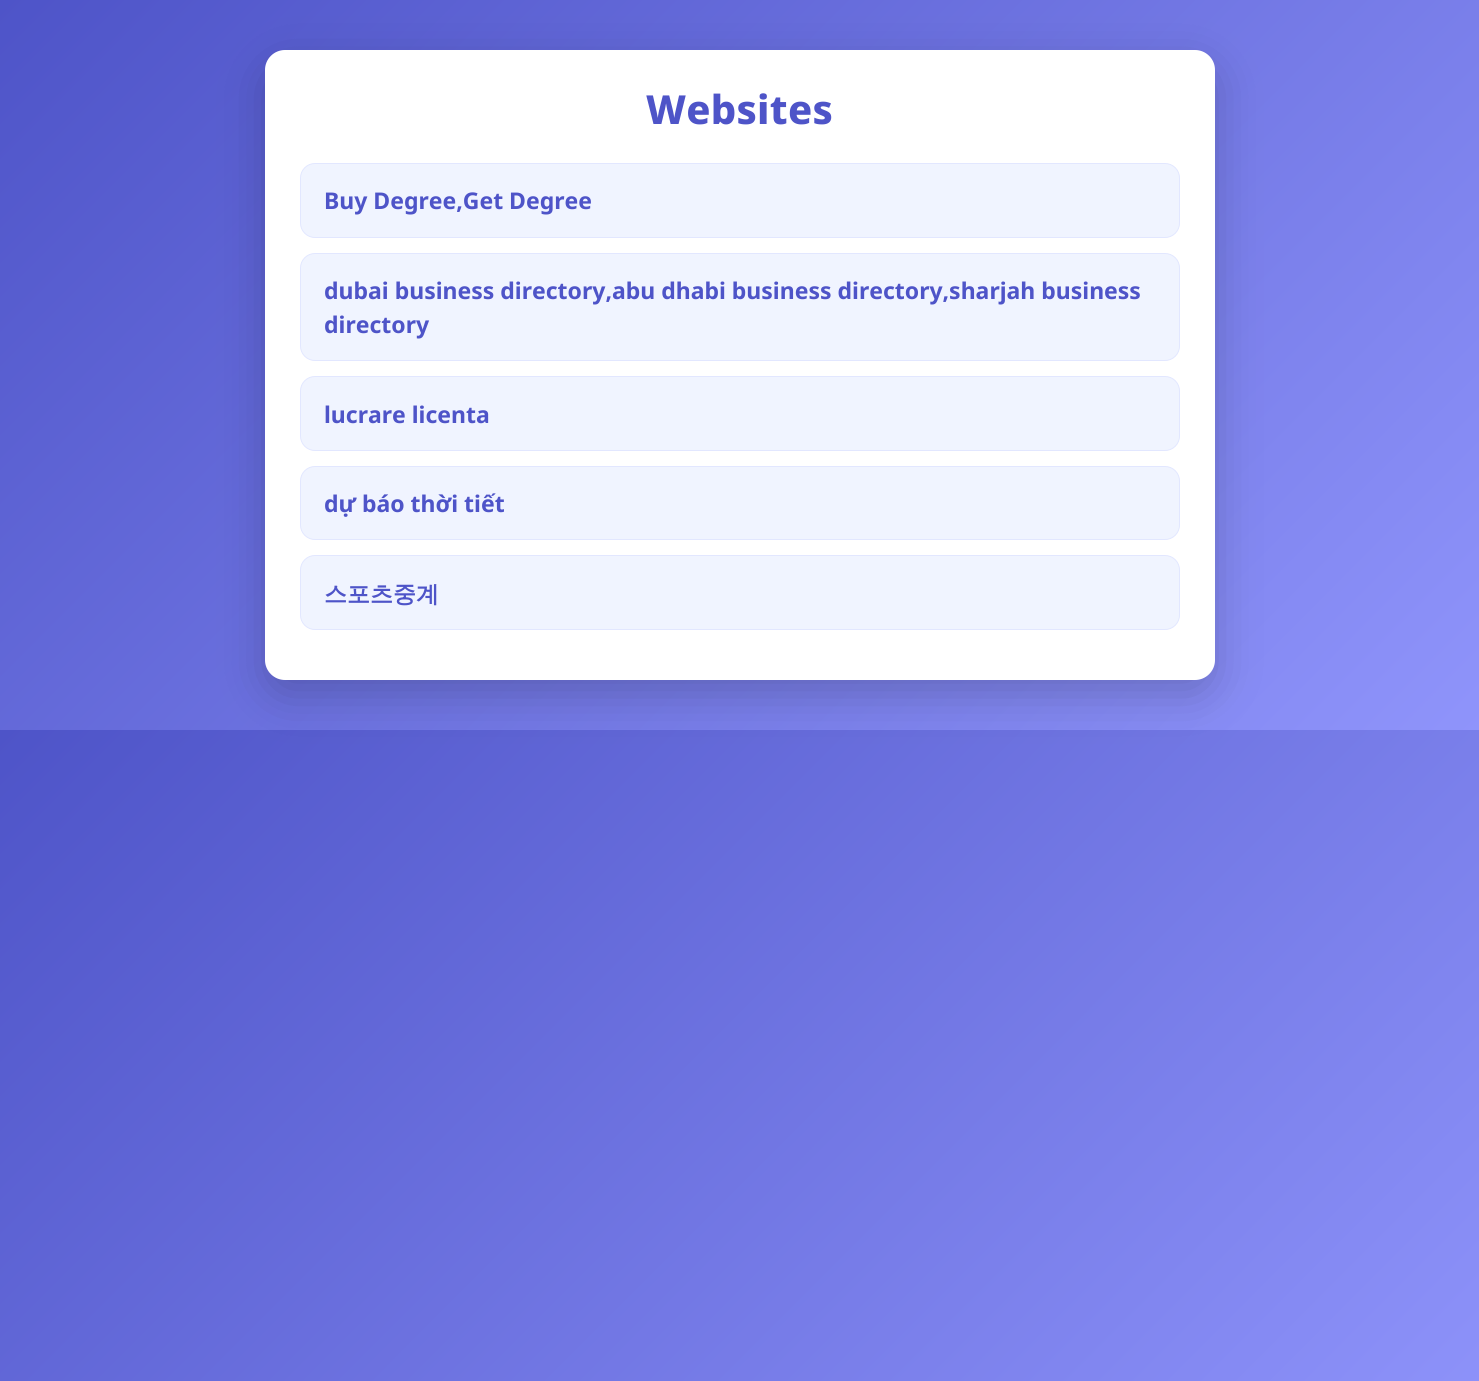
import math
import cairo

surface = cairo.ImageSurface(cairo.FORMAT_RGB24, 1479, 1381)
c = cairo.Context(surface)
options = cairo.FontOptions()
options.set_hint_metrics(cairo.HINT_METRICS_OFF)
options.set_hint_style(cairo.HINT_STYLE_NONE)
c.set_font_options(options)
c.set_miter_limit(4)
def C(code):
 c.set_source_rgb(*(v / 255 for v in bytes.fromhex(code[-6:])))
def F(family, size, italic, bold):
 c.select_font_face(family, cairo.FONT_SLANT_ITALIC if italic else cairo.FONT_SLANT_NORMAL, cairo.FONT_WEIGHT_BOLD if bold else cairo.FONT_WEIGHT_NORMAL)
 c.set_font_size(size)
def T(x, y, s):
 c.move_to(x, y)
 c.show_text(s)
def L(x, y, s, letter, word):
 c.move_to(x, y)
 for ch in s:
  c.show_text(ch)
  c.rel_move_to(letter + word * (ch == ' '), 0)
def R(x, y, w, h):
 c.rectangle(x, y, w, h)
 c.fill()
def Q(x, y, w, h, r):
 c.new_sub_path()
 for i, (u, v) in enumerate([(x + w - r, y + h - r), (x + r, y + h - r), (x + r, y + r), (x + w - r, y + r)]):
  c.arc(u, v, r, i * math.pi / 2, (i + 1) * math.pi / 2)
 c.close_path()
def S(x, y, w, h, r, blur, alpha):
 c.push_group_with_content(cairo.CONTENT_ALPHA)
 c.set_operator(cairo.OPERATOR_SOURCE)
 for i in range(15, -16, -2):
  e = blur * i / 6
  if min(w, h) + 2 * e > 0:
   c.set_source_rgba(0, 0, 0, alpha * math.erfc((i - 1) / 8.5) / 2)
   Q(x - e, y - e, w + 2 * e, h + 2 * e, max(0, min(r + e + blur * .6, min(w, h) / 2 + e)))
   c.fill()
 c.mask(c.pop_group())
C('ffffff')
c.paint()
gradient = cairo.LinearGradient(187,-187,1293,918)
gradient.add_color_stop_rgba(0,0.306,0.329,0.784,1)
gradient.add_color_stop_rgba(1,0.561,0.58,0.984,1)
c.set_source(gradient)
R(0,0,1479,730)
gradient = cairo.LinearGradient(187,543,1293,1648)
gradient.add_color_stop_rgba(0,0.306,0.329,0.784,1)
gradient.add_color_stop_rgba(1,0.561,0.58,0.984,1)
c.set_source(gradient)
R(0,730,1479,651)
C('000000')
S(265,65,950,630,20,22.5,.2)
C('ffffff')
Q(265,50,950,630,20)
c.fill()
F('Noto Sans ExtraBold',40,0,0)
C('4e54c8')
L(646,124,'Websites',.25,0)
C('f0f4ff')
Q(300.5,163.5,879,74,14.5)
c.fill_preserve()
C('e2e7ff')
c.set_line_width(1)
c.stroke()
F('Noto Sans',23,0,1)
C('4e54c8')
T(324,209,'Buy Degree,Get Degree')
C('f0f4ff')
Q(300.5,253.5,879,107,14.5)
c.fill_preserve()
C('e2e7ff')
c.stroke()
C('4e54c8')
T(324,299,'dubai business directory,abu dhabi business directory,sharjah business')
T(324,333,'directory')
C('f0f4ff')
Q(300.5,376.5,879,74,14.5)
c.fill_preserve()
C('e2e7ff')
c.stroke()
C('4e54c8')
T(324,423,'lucrare licenta')
C('f0f4ff')
Q(300.5,466.5,879,73,14.5)
c.fill_preserve()
C('e2e7ff')
c.stroke()
C('4e54c8')
T(324,512,'dự báo thời tiết')
C('f0f4ff')
Q(300.5,555.5,879,74,14.5)
c.fill_preserve()
C('e2e7ff')
c.stroke()
F('WenQuanYi Zen Hei',23,0,1)
C('4e54c8')
T(324,602,'스포츠중계')
surface.write_to_png('o.png')
